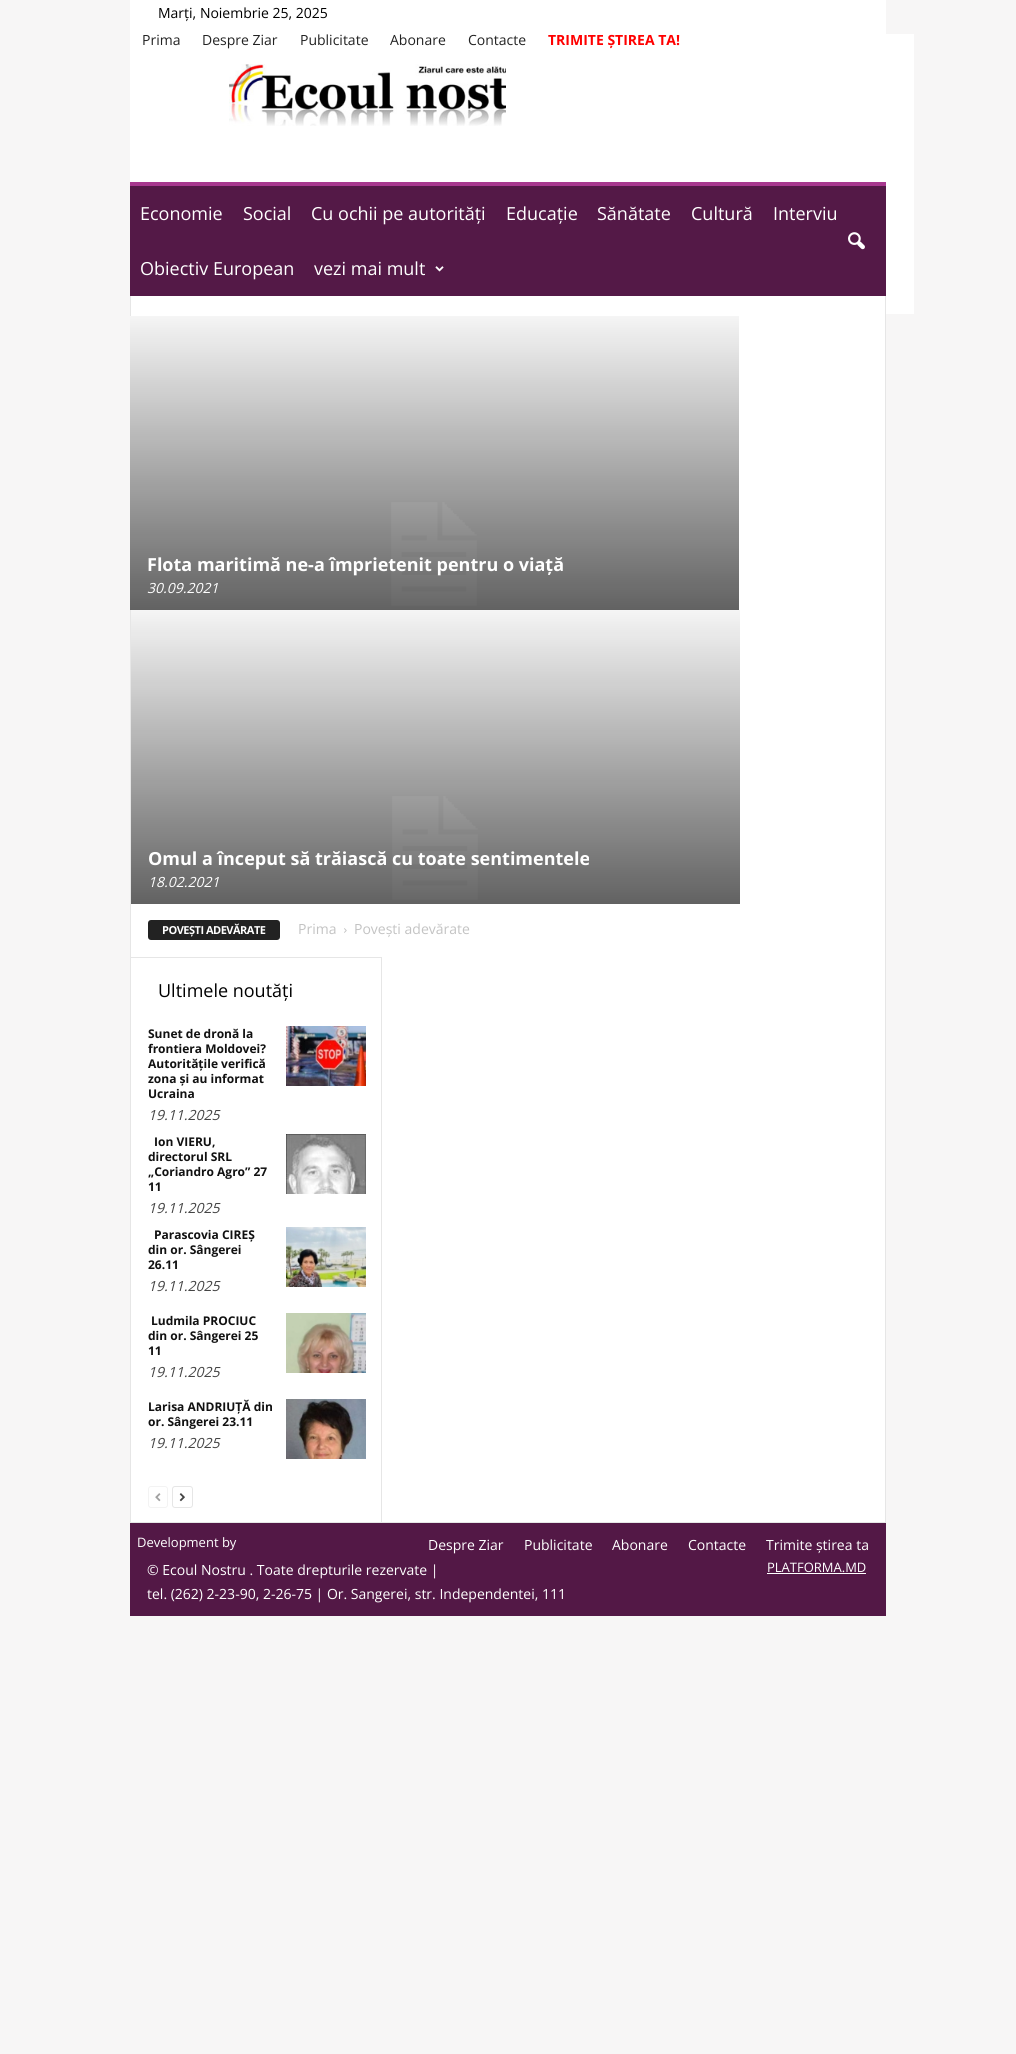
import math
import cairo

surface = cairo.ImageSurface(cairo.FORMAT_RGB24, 1016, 2054)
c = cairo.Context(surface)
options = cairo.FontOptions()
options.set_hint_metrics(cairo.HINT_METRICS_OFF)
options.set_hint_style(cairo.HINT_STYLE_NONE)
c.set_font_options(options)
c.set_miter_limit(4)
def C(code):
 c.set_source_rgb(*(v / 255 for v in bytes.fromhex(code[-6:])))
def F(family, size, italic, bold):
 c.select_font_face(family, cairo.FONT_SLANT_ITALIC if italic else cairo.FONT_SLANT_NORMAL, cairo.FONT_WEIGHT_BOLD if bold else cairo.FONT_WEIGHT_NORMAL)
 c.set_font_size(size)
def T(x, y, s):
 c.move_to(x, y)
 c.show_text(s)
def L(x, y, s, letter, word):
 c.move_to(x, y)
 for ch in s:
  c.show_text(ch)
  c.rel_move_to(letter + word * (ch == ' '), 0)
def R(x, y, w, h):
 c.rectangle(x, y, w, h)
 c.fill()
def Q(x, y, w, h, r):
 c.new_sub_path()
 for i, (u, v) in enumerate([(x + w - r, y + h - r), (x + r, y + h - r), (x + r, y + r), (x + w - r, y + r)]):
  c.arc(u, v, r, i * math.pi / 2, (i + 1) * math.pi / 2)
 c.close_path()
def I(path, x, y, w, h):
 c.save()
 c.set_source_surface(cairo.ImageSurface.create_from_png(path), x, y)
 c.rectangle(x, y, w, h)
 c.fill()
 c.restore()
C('f7f6f6')
c.paint()
C('ffffff')
R(130,0,756,54)
F('Open Sans',14,0,0)
C('000000')
T(158,18,'Marți, Noiembrie 25, 2025')
C('222222')
T(142,45,'Prima')
T(202,45,'Despre Ziar')
T(300,45,'Publicitate')
T(390,45,'Abonare')
C('ffffff')
R(506,34,408,280)
C('222222')
T(468,45,'Contacte')
F('Open Sans',14,0,1)
C('ff0000')
T(548,45,'TRIMITE ȘTIREA TA!')
C('ffffff')
R(130,54,376,128)
I('1.png',229,64,277,62)
C('541947')
R(130,186,756,110)
C('a7378e')
R(130,182,756,4)
F('Open Sans',18,0,0)
C('ffffff')
T(140,220,'Economie')
T(243,220,'Social')
T(311,220,'Cu ochii pe autorități')
T(506,220,'Educație')
T(597,220,'Sănătate')
T(691,220,'Cultură')
T(773,220,'Interviu')
T(140,275,'Obiectiv European')
T(314,275,'vezi mai mult')
I('2.png',435,266,9,6)
I('3.png',848,232,17,18)
C('e6e6e6')
R(130,296,1,20)
C('ffffff')
R(131,296,754,1226)
C('e6e6e6')
R(130,1522,756,1)
R(130,610,1,912)
I('4.png',130,316,609,294)
F('Open Sans',18,0,1)
C('ffffff')
T(147,571,'Flota maritimă ne-a împrietenit pentru o viață')
F('Open Sans',14,1,0)
T(147,593,'30.09.2021')
I('4.png',131,610,609,294)
F('Open Sans',18,0,1)
T(148,865,'Omul a început să trăiască cu toate sentimentele')
F('Open Sans',14,1,0)
T(148,887,'18.02.2021')
C('e6e6e6')
R(885,296,1,1226)
C('222222')
Q(148,920,132,20,3)
c.fill()
F('Open Sans',11,0,1)
C('ffffff')
L(162,934,'POVEȘTI ADEVĂRATE',-.5,0)
F('Open Sans',14,0,0)
C('c3c3c3')
T(298,934,'Prima')
I('5.png',344,928,3,5)
T(354,934,'Povești adevărate')
C('e6e6e6')
R(381,957,1,565)
R(131,957,251,1)
F('Open Sans',18,0,0)
C('000000')
T(158,997,'Ultimele noutăți')
F('Open Sans',12,0,1)
C('111111')
T(148,1038,'Sunet de dronă la')
T(148,1053,'frontiera Moldovei?')
T(148,1068,'Autoritățile verifică')
T(148,1083,'zona și au informat')
T(148,1098,'Ucraina')
F('Open Sans',14,1,0)
C('444444')
T(148,1120,'19.11.2025')
I('6.png',286,1026,80,60)
F('Open Sans',12,0,1)
C('111111')
T(154,1146,'Ion VIERU,')
T(148,1161,'directorul SRL')
T(148,1176,'„Coriandro Agro” 27')
T(148,1191,'11')
F('Open Sans',14,1,0)
C('444444')
T(148,1213,'19.11.2025')
I('7.png',286,1134,80,60)
F('Open Sans',12,0,1)
C('111111')
T(154,1239,'Parascovia CIREȘ')
T(148,1254,'din or. Sângerei')
T(148,1269,'26.11')
F('Open Sans',14,1,0)
C('444444')
T(148,1291,'19.11.2025')
I('8.png',286,1227,80,60)
F('Open Sans',12,0,1)
C('111111')
T(151,1325,'Ludmila PROCIUC')
T(148,1340,'din or. Sângerei 25')
T(148,1355,'11')
F('Open Sans',14,1,0)
C('444444')
T(148,1377,'19.11.2025')
I('9.png',286,1313,80,60)
F('Open Sans',12,0,1)
C('111111')
T(148,1411,'Larisa ANDRIUȚĂ din')
T(148,1426,'or. Sângerei 23.11')
F('Open Sans',14,1,0)
C('444444')
T(148,1448,'19.11.2025')
I('10.png',286,1399,80,60)
Q(148.5,1486.5,19,21,2.5)
C('f3f3f3')
c.set_line_width(1)
c.stroke()
I('11.png',155,1493,6,9)
Q(172.5,1486.5,20,21,2.5)
C('e6e6e6')
c.stroke()
I('12.png',179,1493,6,9)
C('531846')
R(130,1523,756,93)
F('Open Sans',13,0,0)
C('ffffff')
T(137,1547,'Development by')
T(767,1572,'PLATFORMA.MD')
R(767,1573,99,1)
F('Open Sans',14,0,0)
T(428,1550,'Despre Ziar')
T(524,1550,'Publicitate')
T(612,1550,'Abonare')
T(688,1550,'Contacte')
T(766,1550,'Trimite știrea ta')
T(147,1575,'© Ecoul Nostru . Toate drepturile rezervate |')
T(147,1599,'tel. (262) 2-23-90, 2-26-75 | Or. Sangerei, str. Independentei, 111')
surface.write_to_png('o.png')
